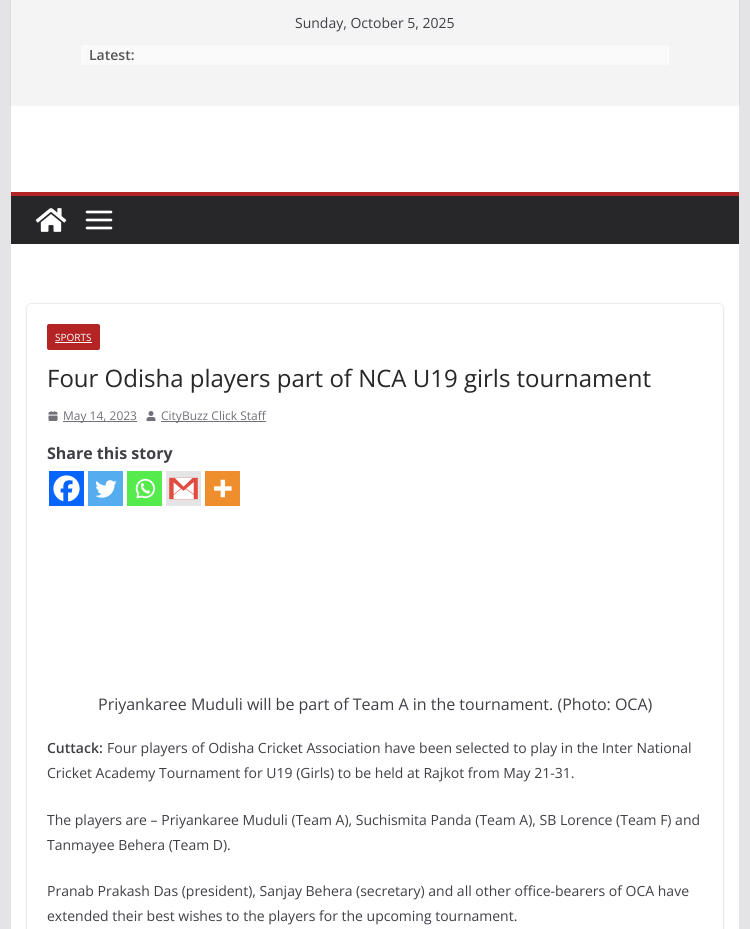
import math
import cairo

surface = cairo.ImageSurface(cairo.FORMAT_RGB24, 750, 929)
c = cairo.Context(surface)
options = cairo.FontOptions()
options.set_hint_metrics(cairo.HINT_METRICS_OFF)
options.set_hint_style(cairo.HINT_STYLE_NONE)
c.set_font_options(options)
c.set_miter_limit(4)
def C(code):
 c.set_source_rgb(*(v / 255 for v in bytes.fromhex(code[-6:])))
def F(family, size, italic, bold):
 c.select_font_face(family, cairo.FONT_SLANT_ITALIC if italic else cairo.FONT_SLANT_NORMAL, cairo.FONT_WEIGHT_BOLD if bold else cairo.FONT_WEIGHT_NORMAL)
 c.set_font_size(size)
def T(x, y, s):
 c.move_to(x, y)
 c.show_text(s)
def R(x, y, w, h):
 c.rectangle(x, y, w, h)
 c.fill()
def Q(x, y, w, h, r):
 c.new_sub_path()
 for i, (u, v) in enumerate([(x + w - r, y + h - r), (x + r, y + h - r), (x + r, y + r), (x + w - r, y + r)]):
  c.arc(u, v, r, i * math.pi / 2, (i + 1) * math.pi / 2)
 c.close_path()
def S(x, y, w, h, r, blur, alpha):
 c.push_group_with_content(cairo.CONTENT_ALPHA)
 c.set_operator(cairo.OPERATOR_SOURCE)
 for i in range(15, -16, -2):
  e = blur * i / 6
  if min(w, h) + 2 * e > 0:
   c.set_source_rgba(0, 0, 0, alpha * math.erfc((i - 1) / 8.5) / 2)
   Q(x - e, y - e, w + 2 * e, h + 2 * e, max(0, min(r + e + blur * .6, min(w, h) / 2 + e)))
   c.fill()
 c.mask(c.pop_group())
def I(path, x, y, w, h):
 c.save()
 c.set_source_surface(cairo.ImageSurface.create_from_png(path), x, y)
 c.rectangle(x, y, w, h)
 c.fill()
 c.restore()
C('e4e4e7')
c.paint()
C('ffffff')
R(11,105,728,87)
C('000000')
S(11,0,728,105,0,1,.1)
C('f4f4f5')
R(11,0,728,105)
F('Open Sans',14,0,0)
C('3f3f46')
T(295,28,'Sunday, October 5, 2025')
C('fafafa')
R(81,45,588,20)
F('Open Sans SemiBold',14,0,0)
C('555555')
T(89,60,'Latest:')
C('27272a')
R(11,196,728,48)
C('b52424')
R(11,192,728,4)
I('1.png',35,208,32,24)
I('2.png',85,210,28,20)
C('ffffff')
R(11,244,728,685)
c.save()
c.set_fill_rule(cairo.FILL_RULE_EVEN_ODD)
c.new_path()
c.move_to(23,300)
c.line_to(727,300)
c.line_to(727,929)
c.line_to(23,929)
c.close_path()
c.move_to(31,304)
c.line_to(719,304)
c.curve_to(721,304,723,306,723,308)
c.line_to(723,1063)
c.curve_to(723,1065,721,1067,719,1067)
c.line_to(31,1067)
c.curve_to(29,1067,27,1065,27,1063)
c.line_to(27,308)
c.curve_to(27,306,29,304,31,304)
c.close_path()
c.clip()
C('000000')
S(27,304,696,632,4,1,.24)
c.restore()
C('b52424')
Q(47,324,53,26,2)
c.fill()
F('Open Sans',10,0,0)
C('ffffff')
T(55,341,'SPORTS')
R(55,342,37,1)
F('Open Sans',24,0,0)
C('27272a')
T(47,387,'Four Odisha players part of NCA U19 girls tournament')
I('3.png',48,411,10,10)
C('71717a')
R(63,421,74,1)
F('Open Sans',12,0,0)
T(63,420,'May 14, 2023')
I('4.png',146,411,10,10)
R(161,421,105,1)
T(161,420,'CityBuzz Click Staff')
F('Open Sans',16,0,1)
C('3f3f46')
T(47,459,'Share this story')
C('0765fe')
R(49,471,35,35)
I('5.png',53,475,27,27)
C('55acee')
R(88,471,35,35)
I('6.png',95,480,22,18)
C('55eb4c')
R(127,471,35,35)
I('7.png',135,478,20,21)
C('e5e5e5')
R(166,471,35,35)
I('8.png',169,477,29,23)
C('ee8e2d')
R(205,471,35,35)
I('9.png',214,479,18,19)
F('Open Sans',16,0,0)
C('3f3f46')
T(98,710,'Priyankaree Muduli will be part of Team A in the tournament. (Photo: OCA)')
F('Open Sans SemiBold',14,0,0)
T(47,753,'Cuttack:')
F('Open Sans',14,0,0)
T(107,753,'Four players of Odisha Cricket Association have been selected to play in the Inter National')
T(47,778,'Cricket Academy Tournament for U19 (Girls) to be held at Rajkot from May 21-31.')
T(47,825,'The players are – Priyankaree Muduli (Team A), Suchismita Panda (Team A), SB Lorence (Team F) and')
T(47,850,'Tanmayee Behera (Team D).')
T(47,896,'Pranab Prakash Das (president), Sanjay Behera (secretary) and all other office-bearers of OCA have')
T(47,921,'extended their best wishes to the players for the upcoming tournament.')
surface.write_to_png('o.png')
